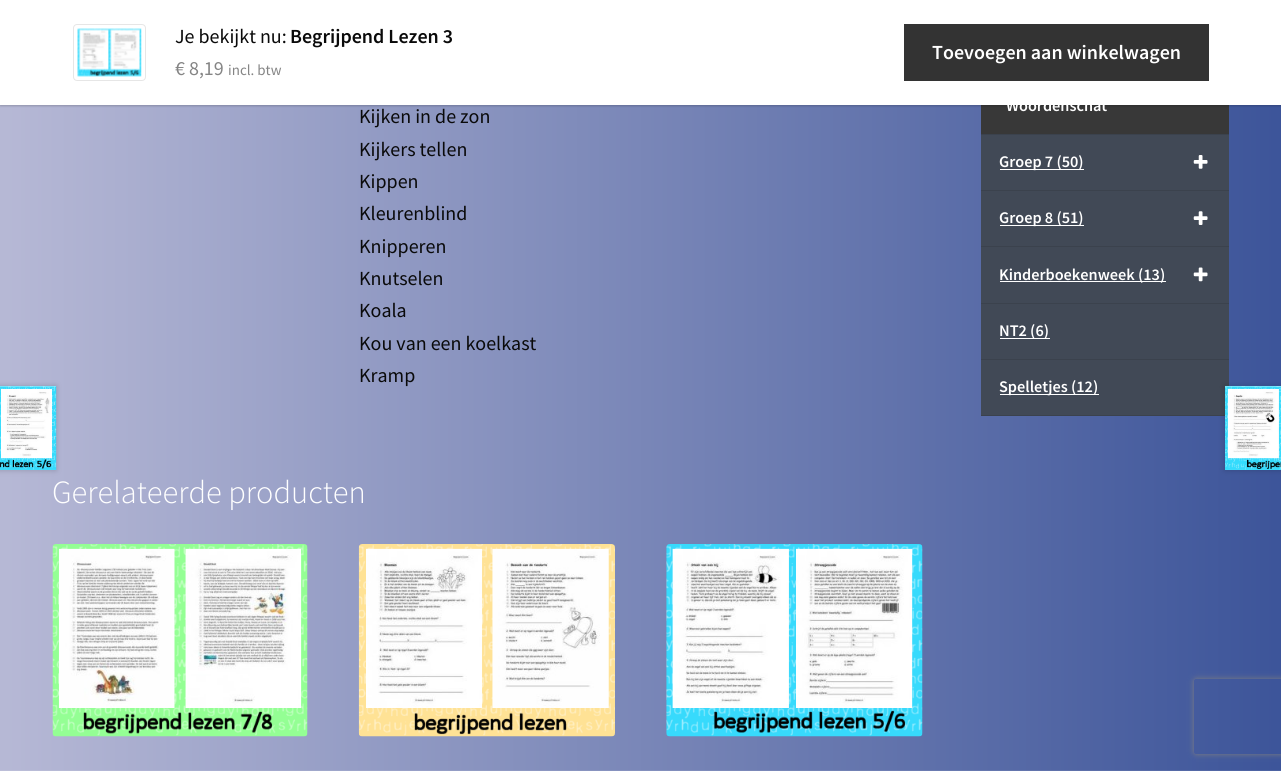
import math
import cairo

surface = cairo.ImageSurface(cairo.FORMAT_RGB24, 1281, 771)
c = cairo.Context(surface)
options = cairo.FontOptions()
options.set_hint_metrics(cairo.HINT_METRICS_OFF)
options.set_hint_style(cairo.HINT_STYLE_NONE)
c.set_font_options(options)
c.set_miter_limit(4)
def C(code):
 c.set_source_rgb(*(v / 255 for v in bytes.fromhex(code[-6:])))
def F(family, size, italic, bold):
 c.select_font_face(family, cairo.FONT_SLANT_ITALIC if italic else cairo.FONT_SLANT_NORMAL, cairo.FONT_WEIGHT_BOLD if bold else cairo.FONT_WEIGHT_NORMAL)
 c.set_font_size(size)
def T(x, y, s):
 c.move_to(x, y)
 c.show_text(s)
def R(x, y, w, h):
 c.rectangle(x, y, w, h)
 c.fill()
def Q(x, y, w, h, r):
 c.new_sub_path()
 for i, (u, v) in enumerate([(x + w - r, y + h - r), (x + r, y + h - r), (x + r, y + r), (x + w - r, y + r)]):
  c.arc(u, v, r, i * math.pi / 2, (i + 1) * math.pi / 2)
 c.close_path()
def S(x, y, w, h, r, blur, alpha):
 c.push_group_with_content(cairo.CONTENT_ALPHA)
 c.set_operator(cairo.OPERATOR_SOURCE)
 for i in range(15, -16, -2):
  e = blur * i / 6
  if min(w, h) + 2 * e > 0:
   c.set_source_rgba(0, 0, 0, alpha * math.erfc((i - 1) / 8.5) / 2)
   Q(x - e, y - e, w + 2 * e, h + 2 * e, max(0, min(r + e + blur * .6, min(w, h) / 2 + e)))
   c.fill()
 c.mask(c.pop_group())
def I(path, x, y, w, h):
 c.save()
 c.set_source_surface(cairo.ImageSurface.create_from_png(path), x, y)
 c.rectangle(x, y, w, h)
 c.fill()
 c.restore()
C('ffffff')
c.paint()
I('1.png',0,105,1281,666)
C('383838')
R(981,105,248,29)
C('000000')
S(0,1,1281,105,0,1,.2)
C('ffffff')
R(0,0,1281,105)
Q(73.5,24.5,72,56,3.5)
C('e6e6e6')
c.set_line_width(1)
c.stroke()
I('2.png',77,28,65,49)
F('Source Sans Pro',20,0,0)
C('0a0a0a')
T(175,43,'Je bekijkt nu:')
F('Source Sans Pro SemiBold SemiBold',20,0,0)
T(290,43,'Begrijpend Lezen 3')
F('Source Sans Pro',20,0,0)
C('858585')
T(175,75,'€ 8,19')
F('Source Sans Pro',15,0,0)
T(228,75,'incl. btw')
C('333333')
R(904,24,305,57)
F('Source Sans Pro SemiBold SemiBold',20,0,0)
C('ffffff')
T(932,59,'Toevoegen aan winkelwagen')
F('Source Sans Pro',20,0,0)
C('0a0a0a')
T(359,123,'Kijken in de zon')
T(359,156,'Kijkers tellen')
T(359,188,'Kippen')
T(359,220,'Kleurenblind')
T(359,253,'Knipperen')
T(359,285,'Knutselen')
T(359,317,'Koala')
T(359,350,'Kou van een koelkast')
T(359,382,'Kramp')
C('000000')
S(-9,386,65,84,0,3,.2)
C('ffffff')
R(0,386,56,84)
I('3.png',0,385,57,85)
C('414956')
R(981,360,248,55)
C('3b424d')
R(981,415,248,1)
C('000000')
S(1225,386,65,84,0,3,.2)
C('ffffff')
R(1225,386,56,84)
I('4.png',1225,385,56,85)
F('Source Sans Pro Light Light',32.4,0,0)
T(52,503,'Gerelateerde producten')
I('5.png',52,544,256,193)
I('6.png',358,544,257,193)
I('7.png',666,544,257,193)
C('3b424d')
R(981,134,248,1)
F('Source Sans Pro SemiBold SemiBold',16.25,0,0)
C('ffffff')
T(1006,111,'Woordenschat')
C('414956')
R(981,135,248,55)
C('3b424d')
R(981,190,248,1)
C('ffffff')
R(1000,169,84,1)
T(999,167,'Groep 7 (50)')
I('8.png',1193,155,15,14)
C('414956')
R(981,191,248,112)
C('3b424d')
R(981,246,248,1)
C('ffffff')
R(1000,225,84,1)
T(999,223,'Groep 8 (51)')
I('9.png',1193,211,15,14)
C('3b424d')
R(981,303,248,1)
C('ffffff')
R(1000,281,166,1)
T(999,280,'Kinderboekenweek (13)')
I('10.png',1193,267,15,15)
C('414956')
R(981,304,248,55)
C('3b424d')
R(981,359,248,1)
C('ffffff')
R(1000,338,50,1)
T(999,336,'NT2 (6)')
R(1000,394,99,1)
T(999,392,'Spelletjes (12)')
c.save()
c.set_fill_rule(cairo.FILL_RULE_EVEN_ODD)
c.new_path()
c.move_to(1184,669)
c.line_to(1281,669)
c.line_to(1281,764)
c.line_to(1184,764)
c.close_path()
c.move_to(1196.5,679)
c.line_to(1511.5,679)
c.curve_to(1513,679,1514,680,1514,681.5)
c.line_to(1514,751.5)
c.curve_to(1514,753,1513,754,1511.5,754)
c.line_to(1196.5,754)
c.curve_to(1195,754,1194,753,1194,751.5)
c.line_to(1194,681.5)
c.curve_to(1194,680,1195,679,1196.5,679)
c.close_path()
c.clip()
C('808080')
S(1194,679,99,75,2.5,3,1)
c.restore()
surface.write_to_png('o.png')
